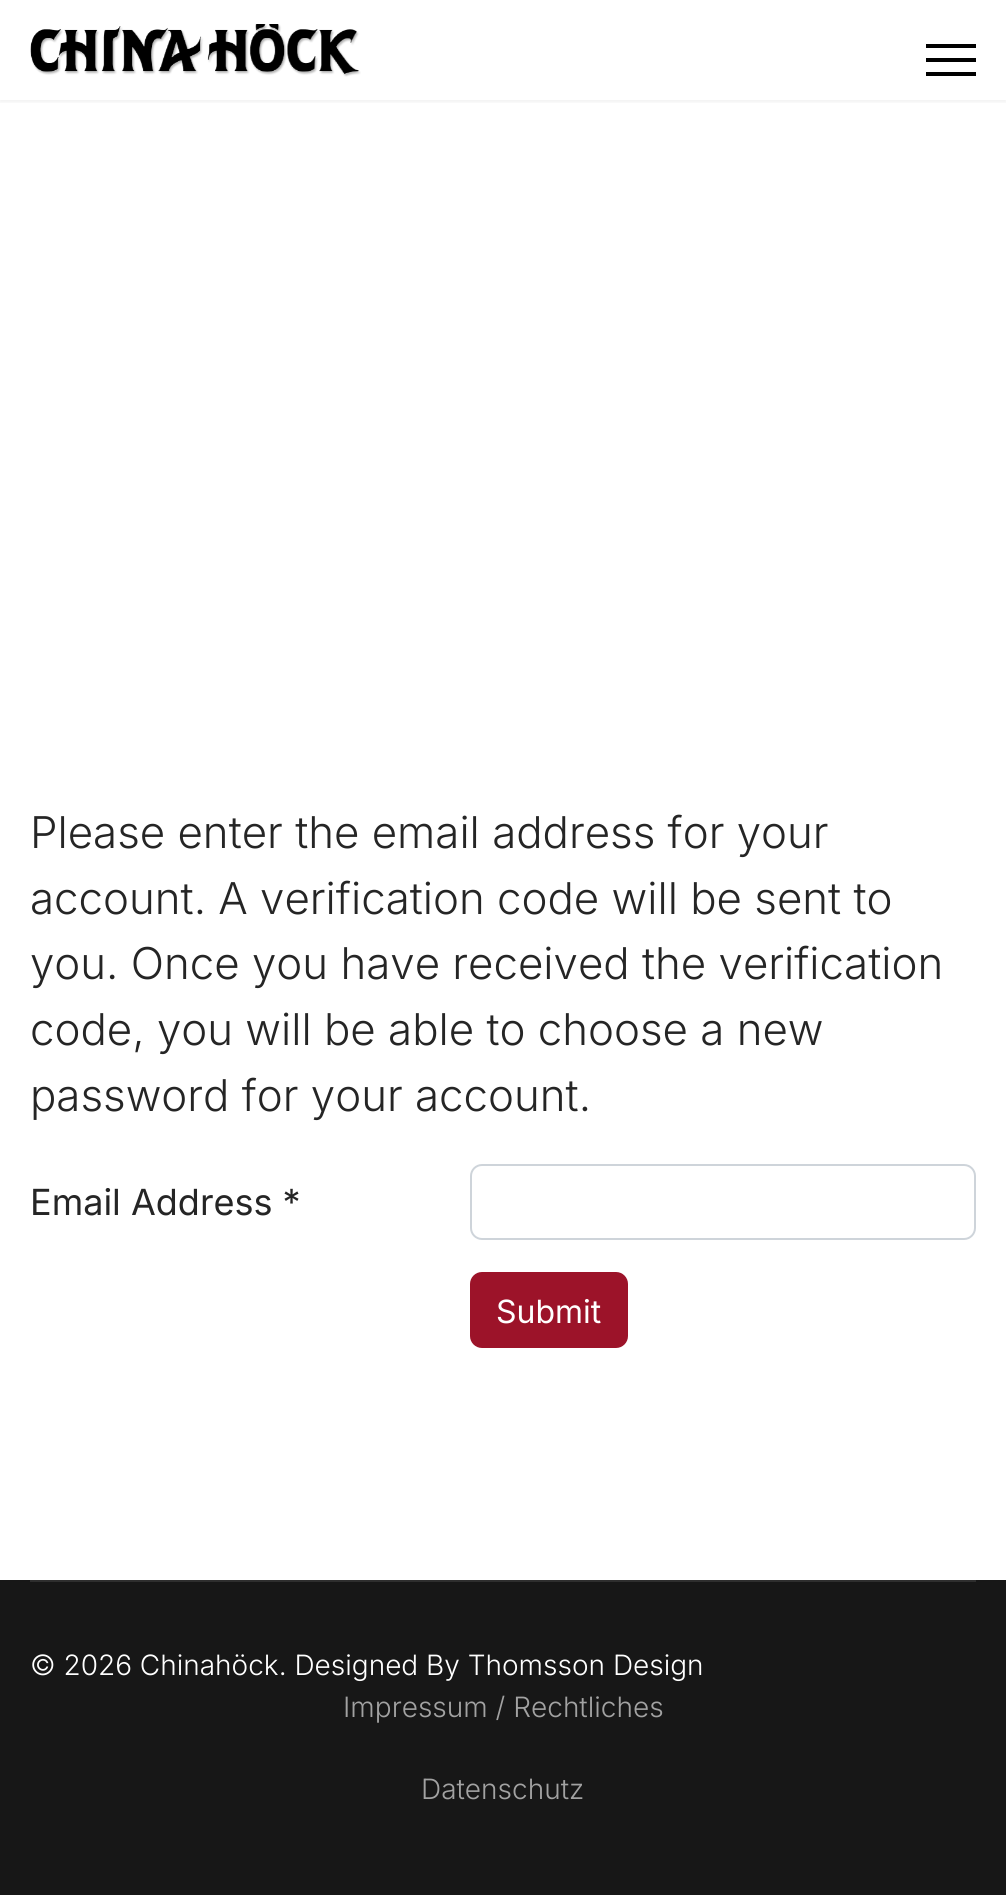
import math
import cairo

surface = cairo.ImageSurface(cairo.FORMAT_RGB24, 1006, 1895)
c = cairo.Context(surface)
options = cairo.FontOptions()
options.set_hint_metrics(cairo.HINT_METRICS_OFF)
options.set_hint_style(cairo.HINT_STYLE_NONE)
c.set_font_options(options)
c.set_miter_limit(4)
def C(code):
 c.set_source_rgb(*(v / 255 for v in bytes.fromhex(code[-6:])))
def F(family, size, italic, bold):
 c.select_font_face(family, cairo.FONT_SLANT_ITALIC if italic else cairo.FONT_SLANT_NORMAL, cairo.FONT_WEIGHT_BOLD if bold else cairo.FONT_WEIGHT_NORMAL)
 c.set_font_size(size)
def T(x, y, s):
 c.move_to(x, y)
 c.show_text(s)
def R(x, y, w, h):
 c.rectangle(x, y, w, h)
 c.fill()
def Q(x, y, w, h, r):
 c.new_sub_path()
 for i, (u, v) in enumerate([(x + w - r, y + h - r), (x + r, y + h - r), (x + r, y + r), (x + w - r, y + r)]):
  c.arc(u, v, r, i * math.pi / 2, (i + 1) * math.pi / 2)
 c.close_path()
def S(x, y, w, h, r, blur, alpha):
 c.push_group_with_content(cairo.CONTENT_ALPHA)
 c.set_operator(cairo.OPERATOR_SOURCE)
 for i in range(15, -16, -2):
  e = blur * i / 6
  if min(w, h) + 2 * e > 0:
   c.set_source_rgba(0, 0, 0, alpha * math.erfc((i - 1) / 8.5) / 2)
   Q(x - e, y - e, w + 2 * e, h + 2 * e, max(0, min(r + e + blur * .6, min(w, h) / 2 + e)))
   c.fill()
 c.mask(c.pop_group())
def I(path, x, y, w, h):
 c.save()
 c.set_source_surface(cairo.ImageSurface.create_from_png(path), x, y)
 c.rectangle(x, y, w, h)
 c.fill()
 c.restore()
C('ffffff')
c.paint()
c.save()
c.rectangle(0,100,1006,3)
c.clip()
C('000000')
S(0,0,1006,100,0,4,.1)
c.restore()
I('1.png',30,24,331,53)
C('000000')
R(926,44,50,4)
R(926,58,50,4)
R(926,72,50,4)
F('Inter Light',43.8,0,0)
C('252525')
T(30,848,'Please enter the email address for your')
T(30,914,'account. A verification code will be sent to')
T(30,979,'you. Once you have received the verification')
T(30,1045,'code, you will be able to choose a new')
T(30,1111,'password for your account.')
F('Inter',36,0,0)
T(30,1215,'Email Address *')
Q(471,1165,504,74,11)
C('ced4da')
c.stroke()
C('9c1329')
Q(471,1273,156,74,11)
c.fill_preserve()
c.stroke()
F('Inter',32,0,0)
C('ffffff')
T(496,1323,'Submit')
C('171717')
R(0,1580,1006,315)
C('2e2e2e')
R(30,1580,946,2)
F('Inter Light',28,0,0)
C('ffffff')
T(30,1675,'© 2026 Chinahöck. Designed By Thomsson Design')
C('a2a2a2')
T(343,1717,'Impressum / Rechtliches')
T(421,1799,'Datenschutz')
surface.write_to_png('o.png')
